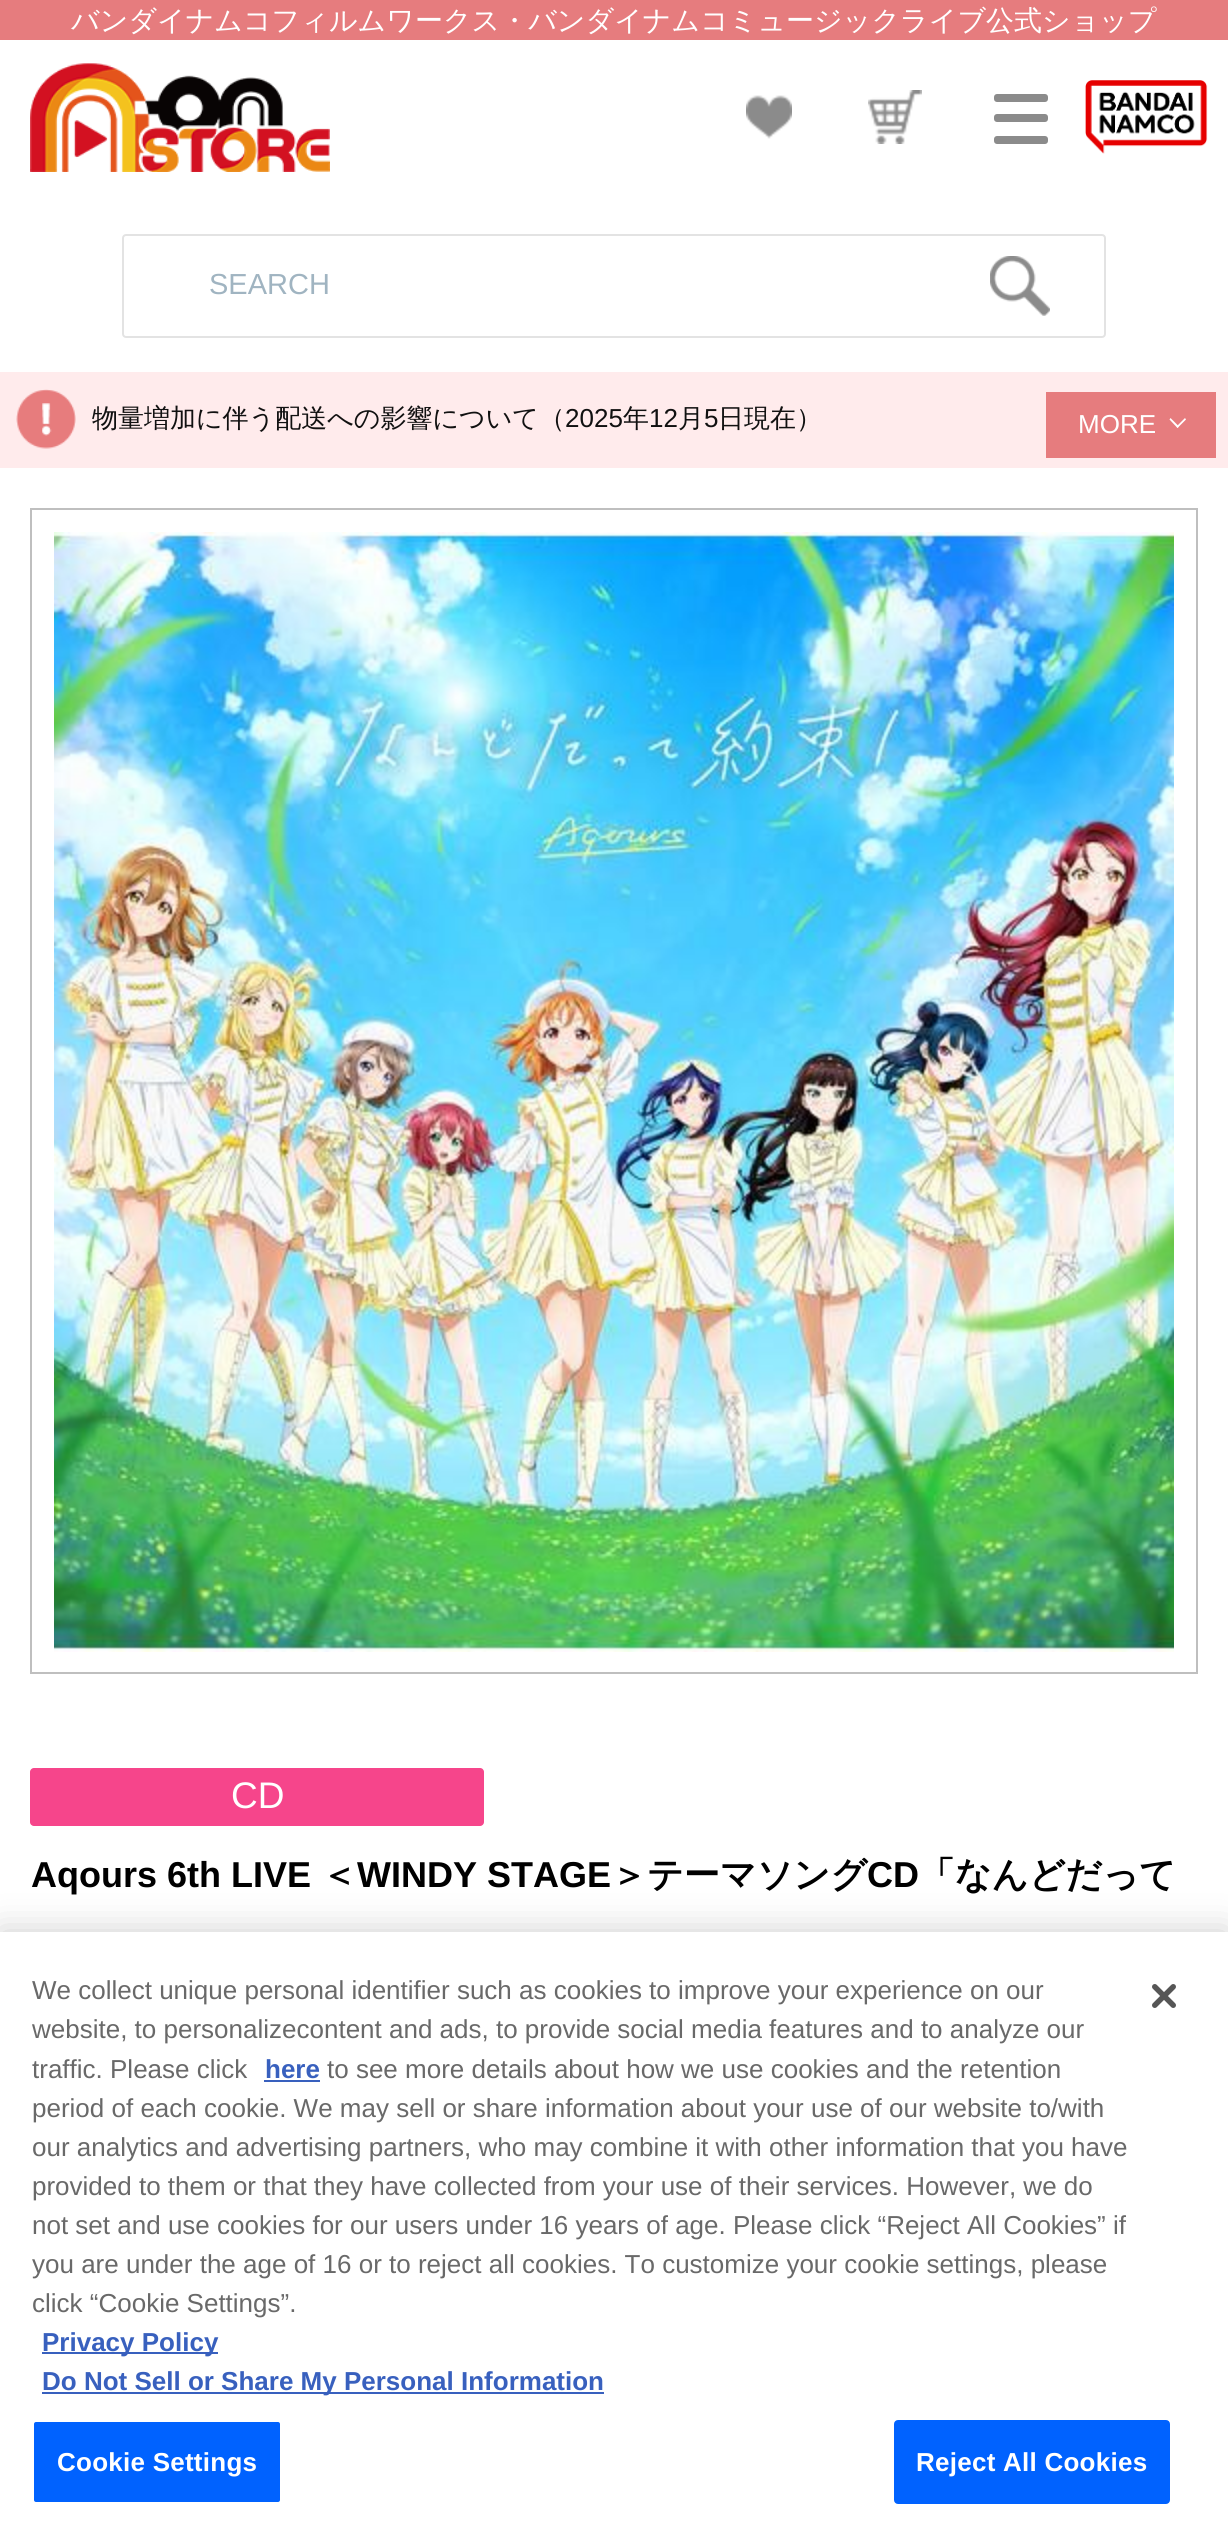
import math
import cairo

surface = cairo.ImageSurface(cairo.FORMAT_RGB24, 1228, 2532)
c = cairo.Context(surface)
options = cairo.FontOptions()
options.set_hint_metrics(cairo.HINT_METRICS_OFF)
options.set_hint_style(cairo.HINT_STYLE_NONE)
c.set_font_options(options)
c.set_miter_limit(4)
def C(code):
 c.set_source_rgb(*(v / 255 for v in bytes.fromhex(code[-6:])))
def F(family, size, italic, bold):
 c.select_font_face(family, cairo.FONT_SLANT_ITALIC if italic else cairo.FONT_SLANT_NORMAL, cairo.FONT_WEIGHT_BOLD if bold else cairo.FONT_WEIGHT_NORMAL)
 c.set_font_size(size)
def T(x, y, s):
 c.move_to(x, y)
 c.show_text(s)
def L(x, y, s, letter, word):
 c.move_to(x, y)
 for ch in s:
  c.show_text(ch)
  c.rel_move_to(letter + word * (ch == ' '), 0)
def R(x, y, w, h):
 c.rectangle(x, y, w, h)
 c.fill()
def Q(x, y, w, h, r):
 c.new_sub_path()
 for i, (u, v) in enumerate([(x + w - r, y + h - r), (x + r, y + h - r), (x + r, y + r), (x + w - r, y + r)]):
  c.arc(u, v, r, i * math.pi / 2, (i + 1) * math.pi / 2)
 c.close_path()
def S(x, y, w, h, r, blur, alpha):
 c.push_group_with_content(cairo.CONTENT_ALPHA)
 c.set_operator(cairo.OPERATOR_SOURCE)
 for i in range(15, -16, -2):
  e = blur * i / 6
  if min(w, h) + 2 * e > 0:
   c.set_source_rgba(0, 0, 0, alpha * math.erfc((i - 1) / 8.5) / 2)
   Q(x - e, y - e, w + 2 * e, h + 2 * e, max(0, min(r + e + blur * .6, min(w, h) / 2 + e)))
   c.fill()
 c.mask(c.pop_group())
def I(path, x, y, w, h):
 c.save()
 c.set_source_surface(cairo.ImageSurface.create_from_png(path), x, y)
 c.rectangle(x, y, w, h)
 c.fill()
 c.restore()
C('ffffff')
c.paint()
C('e67c7e')
R(0,0,1228,40)
F('WenQuanYi Zen Hei Medium',28,0,0)
C('ffffff')
T(71,30,'バンダイナムコフィルムワークス・バンダイナムコミュージックライブ公式ショップ')
I('1.png',30,63,300,109)
I('2.png',746,95,46,44)
I('3.png',868,90,54,54)
C('8b8b8b')
Q(994,94,54,8,3)
c.fill()
Q(994,114,54,8,3)
c.fill()
Q(994,136,54,8,3)
c.fill()
I('4.png',1085,80,123,74)
Q(123,235,982,102,3)
C('e3e3e3')
c.stroke()
F('Liberation Sans',29,0,0)
C('a0b4c1')
T(209,294,'SEARCH')
I('5.png',990,256,60,60)
C('ffebec')
R(0,372,1228,96)
I('6.png',16,389,60,60)
F('WenQuanYi Zen Hei Medium',26,0,0)
C('111111')
T(92,427,'物量増加に伴う配送への影響について（')
F('Liberation Sans',26,0,0)
T(565,427,'2025')
F('WenQuanYi Zen Hei Medium',26,0,0)
T(623,427,'年')
F('Liberation Sans',26,0,0)
T(649,427,'12')
F('WenQuanYi Zen Hei Medium',26,0,0)
T(678,427,'月')
F('Liberation Sans',26,0,0)
T(704,427,'5')
F('WenQuanYi Zen Hei Medium',26,0,0)
T(718,427,'日現在）')
C('e67c7e')
R(1046,392,170,66)
F('Liberation Sans',26,0,0)
C('ffffff')
T(1078,433,'MORE')
c.new_path()
c.move_to(1176.5,426.5)
c.line_to(1185,418)
c.line_to(1186,419.5)
c.line_to(1177.5,428)
c.close_path()
c.fill()
c.new_path()
c.move_to(1169.5,419.5)
c.line_to(1170.5,418)
c.line_to(1179,426.5)
c.line_to(1177.5,428)
c.close_path()
c.fill()
c.rectangle(31,509,1166,1164)
C('bfbfbf')
c.stroke()
I('7.png',54,532,1120,1120)
C('f6458b')
Q(30,1768,454,58,4)
c.fill()
F('Liberation Sans',37,0,0)
C('ffffff')
T(231,1808,'CD')
F('Liberation Sans',36,0,1)
C('000000')
T(31,1887,'Aqours 6th LIVE')
F('WenQuanYi Zen Hei',36,0,1)
T(321,1887,'＜')
F('Liberation Sans',36,0,1)
T(357,1887,'WINDY STAGE')
F('WenQuanYi Zen Hei',36,0,1)
T(611,1887,'＞テーマソング')
F('Liberation Sans',36,0,1)
T(867,1887,'CD')
F('WenQuanYi Zen Hei',36,0,1)
T(919,1887,'「なんどだって')
C('000000')
S(0,1932,1228,600,0,18,.2)
C('ffffff')
R(0,1932,1228,600)
F('Liberation Sans',26,0,0)
C('696969')
T(32,1999,'We collect unique personal identifier such as cookies to improve your experience on our')
T(32,2038,'website, to personalizecontent and ads, to provide social media features and to analyze our')
T(32,2078,'traffic. Please click')
F('Liberation Sans',26,0,1)
C('3860be')
T(265,2078,'here')
R(264,2080,56,2)
F('Liberation Sans',26,0,0)
C('696969')
T(327,2078,'to see more details about how we use cookies and the retention')
T(32,2117,'period of each cookie. We may sell or share information about your use of our website to/with')
T(32,2156,'our analytics and advertising partners, who may combine it with other information that you have')
T(32,2195,'provided to them or that they have collected from your use of their services. However, we do')
T(32,2234,'not set and use cookies for our users under 16 years of age. Please click “Reject All Cookies” if')
T(32,2273,'you are under the age of 16 or to reject all cookies. To customize your cookie settings, please')
T(32,2312,'click “Cookie Settings”.')
C('3860be')
R(42,2352,176,2)
F('Liberation Sans',26,0,1)
T(42,2351,'Privacy Policy')
R(42,2392,562,2)
T(42,2390,'Do Not Sell or Share My Personal Information')
C('0062ff')
Q(33,2421,248,82,3)
c.fill_preserve()
C('ffffff')
c.stroke()
L(57,2471,'Cookie Settings',.25,0)
C('0062ff')
Q(895,2421,274,82,3)
c.fill_preserve()
c.stroke()
C('ffffff')
L(916,2471,'Reject All Cookies',.25,0)
I('8.png',1152,1984,24,24)
surface.write_to_png('o.png')
